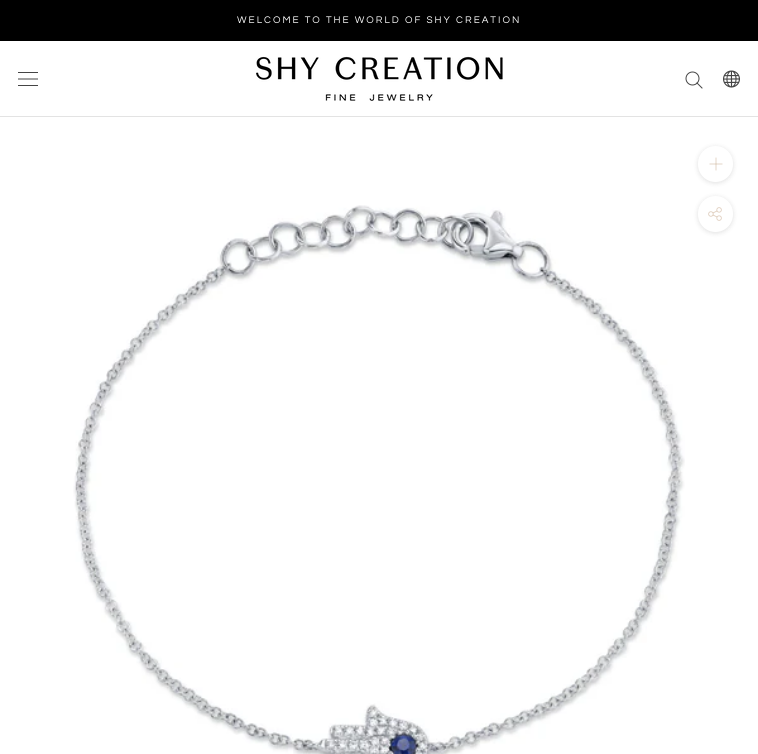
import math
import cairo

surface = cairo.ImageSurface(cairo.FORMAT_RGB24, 758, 754)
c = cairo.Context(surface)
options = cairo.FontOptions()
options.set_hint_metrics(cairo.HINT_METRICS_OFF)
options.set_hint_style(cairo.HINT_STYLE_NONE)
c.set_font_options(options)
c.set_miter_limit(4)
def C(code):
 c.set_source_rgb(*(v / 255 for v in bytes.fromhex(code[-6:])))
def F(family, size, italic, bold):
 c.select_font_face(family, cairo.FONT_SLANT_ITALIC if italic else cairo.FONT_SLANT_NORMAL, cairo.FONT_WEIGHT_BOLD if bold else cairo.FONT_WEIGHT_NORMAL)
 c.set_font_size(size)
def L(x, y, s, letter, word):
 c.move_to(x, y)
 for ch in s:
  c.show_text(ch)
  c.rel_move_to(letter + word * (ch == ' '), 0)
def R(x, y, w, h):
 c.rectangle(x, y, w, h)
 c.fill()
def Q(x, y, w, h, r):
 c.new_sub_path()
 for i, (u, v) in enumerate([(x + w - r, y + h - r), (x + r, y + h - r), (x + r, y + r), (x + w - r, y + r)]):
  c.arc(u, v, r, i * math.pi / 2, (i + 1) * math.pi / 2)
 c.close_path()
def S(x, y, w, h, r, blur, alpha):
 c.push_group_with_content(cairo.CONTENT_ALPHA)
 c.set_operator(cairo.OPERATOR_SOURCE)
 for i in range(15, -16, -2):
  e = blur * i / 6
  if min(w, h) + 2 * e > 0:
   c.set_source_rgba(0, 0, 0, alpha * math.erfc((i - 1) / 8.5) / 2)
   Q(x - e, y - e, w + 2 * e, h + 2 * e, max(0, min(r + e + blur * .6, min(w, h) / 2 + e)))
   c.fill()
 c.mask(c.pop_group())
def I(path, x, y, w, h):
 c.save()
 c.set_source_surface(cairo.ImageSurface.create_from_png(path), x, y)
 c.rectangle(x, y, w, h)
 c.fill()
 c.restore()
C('ffffff')
c.paint()
C('000000')
R(0,0,758,41)
F('Questrial',10,0,0)
C('ffffff')
L(237,23,'WELCOME TO THE WORLD OF SHY CREATION',2,0)
C('e3e3e3')
R(0,116,758,1)
I('1.png',18,72,20,14)
I('2.png',256,56,247,45)
c.new_path()
c.move_to(702,88)
c.line_to(697,83)
C('454545')
c.set_line_width(1)
c.set_line_cap(cairo.LINE_CAP_SQUARE)
c.stroke()
c.arc(692.5,78.5,6.5,0,2 * math.pi)
c.set_line_cap(cairo.LINE_CAP_BUTT)
c.stroke()
I('3.png',723,70,17,18)
C('363636')
S(698,147,35,36,17.5,2.5,.15)
C('ffffff')
Q(698,146,35,36,17.5)
c.fill()
c.new_path()
c.move_to(716,158)
c.line_to(716,170)
C('e1d1c2')
c.set_line_width(.9)
c.set_line_cap(cairo.LINE_CAP_SQUARE)
c.stroke()
c.new_path()
c.move_to(710,164)
c.line_to(722,164)
c.set_source_rgba(0.761,0.635,0.518,0.5)
c.stroke()
C('363636')
S(698,197,35,36,17.5,2.5,.15)
C('ffffff')
Q(698,196,35,36,17.5)
c.fill()
I('4.png',708,207,14,14)
I('5.png',73,205,612,549)
surface.write_to_png('o.png')
